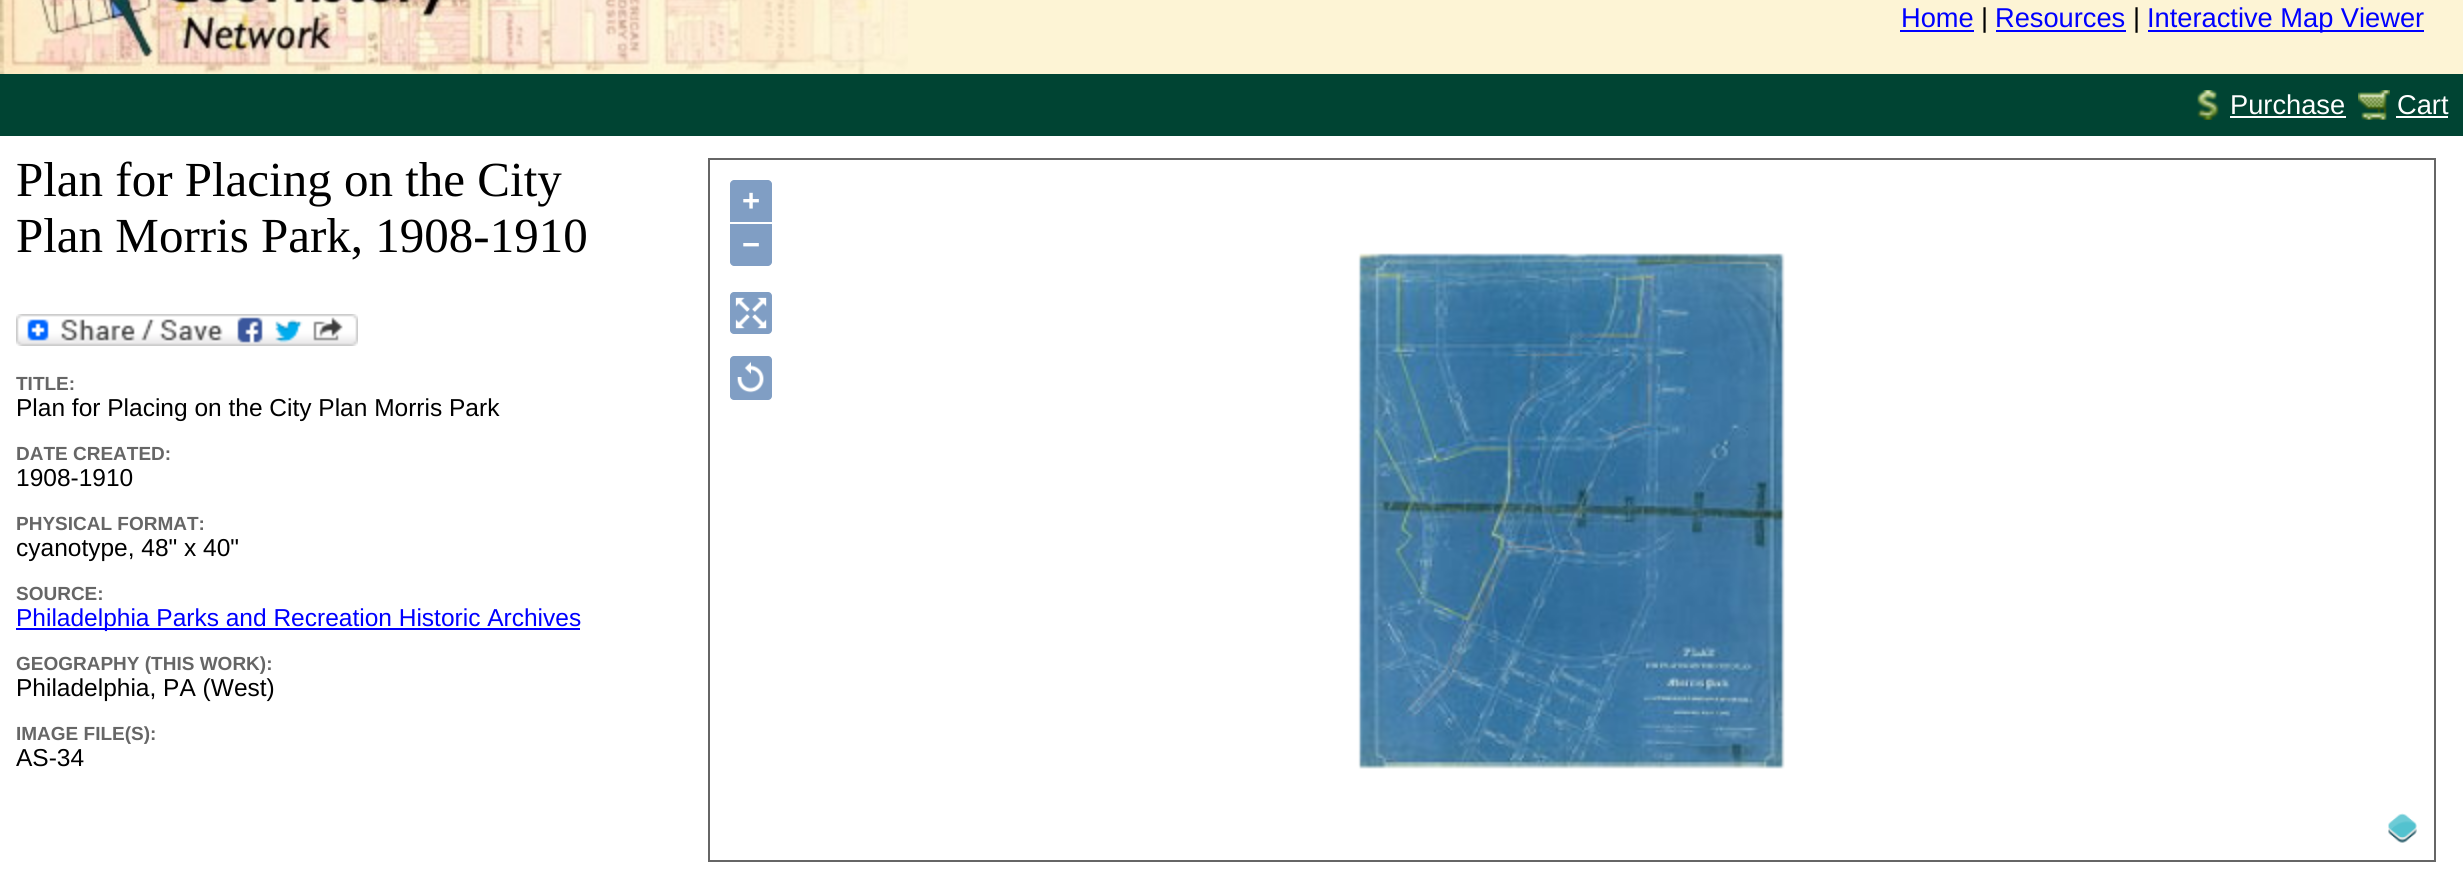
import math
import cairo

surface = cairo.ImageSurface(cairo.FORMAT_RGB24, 2463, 886)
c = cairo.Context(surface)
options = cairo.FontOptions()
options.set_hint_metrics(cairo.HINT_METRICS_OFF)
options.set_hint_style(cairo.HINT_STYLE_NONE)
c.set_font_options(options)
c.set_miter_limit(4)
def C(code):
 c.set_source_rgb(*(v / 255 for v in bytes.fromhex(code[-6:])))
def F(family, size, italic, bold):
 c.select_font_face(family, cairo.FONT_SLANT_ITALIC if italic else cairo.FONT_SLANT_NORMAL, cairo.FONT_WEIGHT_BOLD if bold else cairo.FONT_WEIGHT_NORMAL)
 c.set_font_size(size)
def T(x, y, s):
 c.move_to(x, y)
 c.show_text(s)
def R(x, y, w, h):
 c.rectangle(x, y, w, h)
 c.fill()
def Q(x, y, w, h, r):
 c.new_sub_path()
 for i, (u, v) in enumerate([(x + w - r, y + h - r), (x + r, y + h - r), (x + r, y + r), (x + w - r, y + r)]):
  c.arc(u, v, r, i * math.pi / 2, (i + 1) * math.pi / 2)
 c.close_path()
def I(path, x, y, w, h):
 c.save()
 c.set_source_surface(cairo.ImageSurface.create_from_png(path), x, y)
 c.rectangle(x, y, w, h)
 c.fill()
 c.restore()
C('ffffff')
c.paint()
C('fdf4d5')
R(908,0,1555,74)
I('1.png',0,0,908,74)
F('Liberation Sans',27.25,0,0)
C('0000ff')
T(1901,27,'Home')
R(1900,30,74,2)
C('000000')
T(1981,27,'|')
C('0000ff')
T(1995,27,'Resources')
R(1996,30,130,2)
C('000000')
T(2133,27,'|')
C('0000ff')
R(2148,30,276,2)
T(2147,27,'Interactive Map Viewer')
C('004433')
R(0,74,2463,62)
I('2.png',2197,90,22,30)
C('ffffff')
T(2230,114,'Purchase')
R(2230,116,116,2)
I('3.png',2358,90,32,30)
T(2397,114,'Cart')
R(2396,116,52,2)
F('Liberation Serif',49,0,0)
C('000000')
T(16,196,'Plan for Placing on the City')
T(16,252,'Plan Morris Park, 1908-1910')
I('4.png',16,314,342,32)
F('Liberation Sans',19,0,1)
C('666666')
T(16,390,'TITLE:')
F('Liberation Sans',24.5,0,0)
C('000000')
T(16,416,'Plan for Placing on the City Plan Morris Park')
F('Liberation Sans',19,0,1)
C('666666')
T(16,460,'DATE CREATED:')
F('Liberation Sans',24.5,0,0)
C('000000')
T(16,486,'1908-1910')
F('Liberation Sans',19,0,1)
C('666666')
T(16,530,'PHYSICAL FORMAT:')
F('Liberation Sans',24.5,0,0)
C('000000')
T(16,556,'cyanotype, 48" x 40"')
F('Liberation Sans',19,0,1)
C('666666')
T(16,600,'SOURCE:')
C('0000ff')
R(16,628,564,2)
F('Liberation Sans',24.5,0,0)
T(16,626,'Philadelphia Parks and Recreation Historic Archives')
F('Liberation Sans',19,0,1)
C('666666')
T(16,670,'GEOGRAPHY (THIS WORK):')
F('Liberation Sans',24.5,0,0)
C('000000')
T(16,696,'Philadelphia, PA (West)')
F('Liberation Sans',19,0,1)
C('666666')
T(16,740,'IMAGE FILE(S):')
F('Liberation Sans',24.5,0,0)
C('000000')
T(16,766,'AS-34')
c.rectangle(709,159,1726,702)
C('666666')
c.stroke()
C('809ec4')
c.new_path()
c.move_to(734,180)
c.line_to(768,180)
c.curve_to(770,180,772,182,772,184)
c.line_to(772,222)
c.line_to(730,222)
c.line_to(730,184)
c.curve_to(730,182,732,180,734,180)
c.close_path()
c.fill()
F('Liberation Sans',31,0,1)
C('ffffff')
T(742,211,'+')
C('809ec4')
c.new_path()
c.move_to(730,224)
c.line_to(772,224)
c.line_to(772,262)
c.curve_to(772,264,770,266,768,266)
c.line_to(734,266)
c.curve_to(732,266,730,264,730,262)
c.close_path()
c.fill()
C('ffffff')
T(742,255,'−')
C('809ec4')
Q(730,292,42,42,4)
c.fill()
I('5.png',735,297,32,32)
Q(730,356,42,44,4)
c.fill()
I('6.png',737,361,27,32)
I('7.png',2388,813,29,30)
I('8.png',1358,253,427,516)
surface.write_to_png('o.png')
